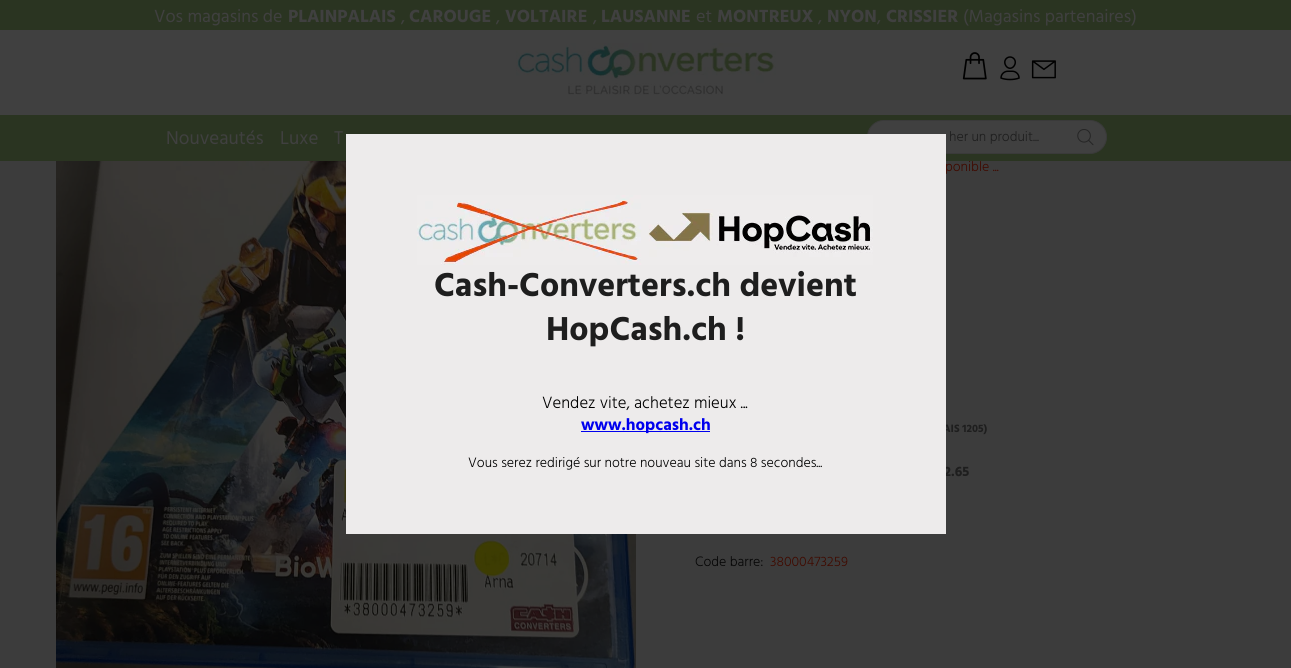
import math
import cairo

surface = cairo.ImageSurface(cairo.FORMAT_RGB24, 1291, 668)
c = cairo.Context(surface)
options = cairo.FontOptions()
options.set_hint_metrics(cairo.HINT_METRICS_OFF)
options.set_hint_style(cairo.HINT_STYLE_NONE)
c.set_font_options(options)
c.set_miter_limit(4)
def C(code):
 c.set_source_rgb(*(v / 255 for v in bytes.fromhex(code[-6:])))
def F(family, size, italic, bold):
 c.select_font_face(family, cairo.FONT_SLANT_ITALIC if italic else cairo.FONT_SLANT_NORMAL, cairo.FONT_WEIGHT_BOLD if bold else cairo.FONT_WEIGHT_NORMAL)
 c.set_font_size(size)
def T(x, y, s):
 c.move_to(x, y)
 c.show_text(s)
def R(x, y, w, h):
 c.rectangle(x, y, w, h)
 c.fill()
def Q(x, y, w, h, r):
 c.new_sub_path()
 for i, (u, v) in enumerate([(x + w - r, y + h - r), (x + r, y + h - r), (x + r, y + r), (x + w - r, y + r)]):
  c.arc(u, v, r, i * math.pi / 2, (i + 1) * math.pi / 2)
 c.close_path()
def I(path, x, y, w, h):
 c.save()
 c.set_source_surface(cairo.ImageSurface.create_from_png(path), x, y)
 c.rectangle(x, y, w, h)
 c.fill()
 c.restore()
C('3c3c3c')
c.paint()
C('2a3421')
R(0,0,1291,161)
F('Hind',18,0,0)
C('404040')
T(154,22,'Vos magasins de')
F('Hind',18,0,1)
T(288,22,'PLAINPALAIS')
F('Hind',18,0,0)
T(401,22,',')
F('Hind',18,0,1)
T(409,22,'CAROUGE')
F('Hind',18,0,0)
T(496,22,',')
F('Hind',18,0,1)
T(505,22,'VOLTAIRE')
F('Hind',18,0,0)
T(593,22,',')
F('Hind',18,0,1)
T(601,22,'LAUSANNE')
F('Hind',18,0,0)
T(696,22,'et')
F('Hind',18,0,1)
T(717,22,'MONTREUX')
F('Hind',18,0,0)
T(818,22,',')
F('Hind',18,0,1)
T(827,22,'NYON')
F('Hind',18,0,0)
T(877,22,',')
F('Hind',18,0,1)
T(886,22,'CRISSIER')
F('Hind',18,0,0)
T(963,22,'(Magasins partenaires)')
R(0,30,1291,85)
I('1.png',516,43,260,52)
I('2.png',962,52,25,28)
I('3.png',1000,56,20,25)
I('4.png',1031,60,25,19)
F('Hind',19,0,0)
T(166,144,'Nouveautés')
T(280,144,'Luxe')
T(334,144,'T')
Q(867.5,120.5,239,33,16.5)
c.fill_preserve()
C('3a3a3a')
c.set_line_width(1)
c.stroke()
F('Hind Light',14,0,0)
C('1e1e1e')
T(949,141,'her un produit...')
I('5.png',1077,129,17,17)
I('6.png',56,161,580,507)
C('400a00')
T(945,171,'ponible ...')
F('Hind',11,0,1)
C('1e1e1e')
T(943,432,'AIS 1205)')
F('Hind',14,0,1)
T(944,476,'2.65')
F('Hind Light',14,0,0)
C('060606')
T(695,566,'Code barre:')
C('400a00')
T(770,566,'38000473259')
C('edebeb')
R(346,134,600,400)
I('7.png',417,195,456,70)
F('Hind',34,0,1)
C('1e1e1e')
T(434,296,'Cash-Converters.ch devient')
T(546,340,'HopCash.ch !')
F('Hind Light',16.75,0,0)
C('000000')
T(542,408,'Vendez vite, achetez mieux ...')
C('0000ee')
R(581,431,129,1)
F('Hind',16.75,0,1)
T(581,430,'www.hopcash.ch')
F('Hind Light',14,0,0)
C('000000')
T(468,467,'Vous serez redirigé sur notre nouveau site dans 8 secondes...')
surface.write_to_png('o.png')
